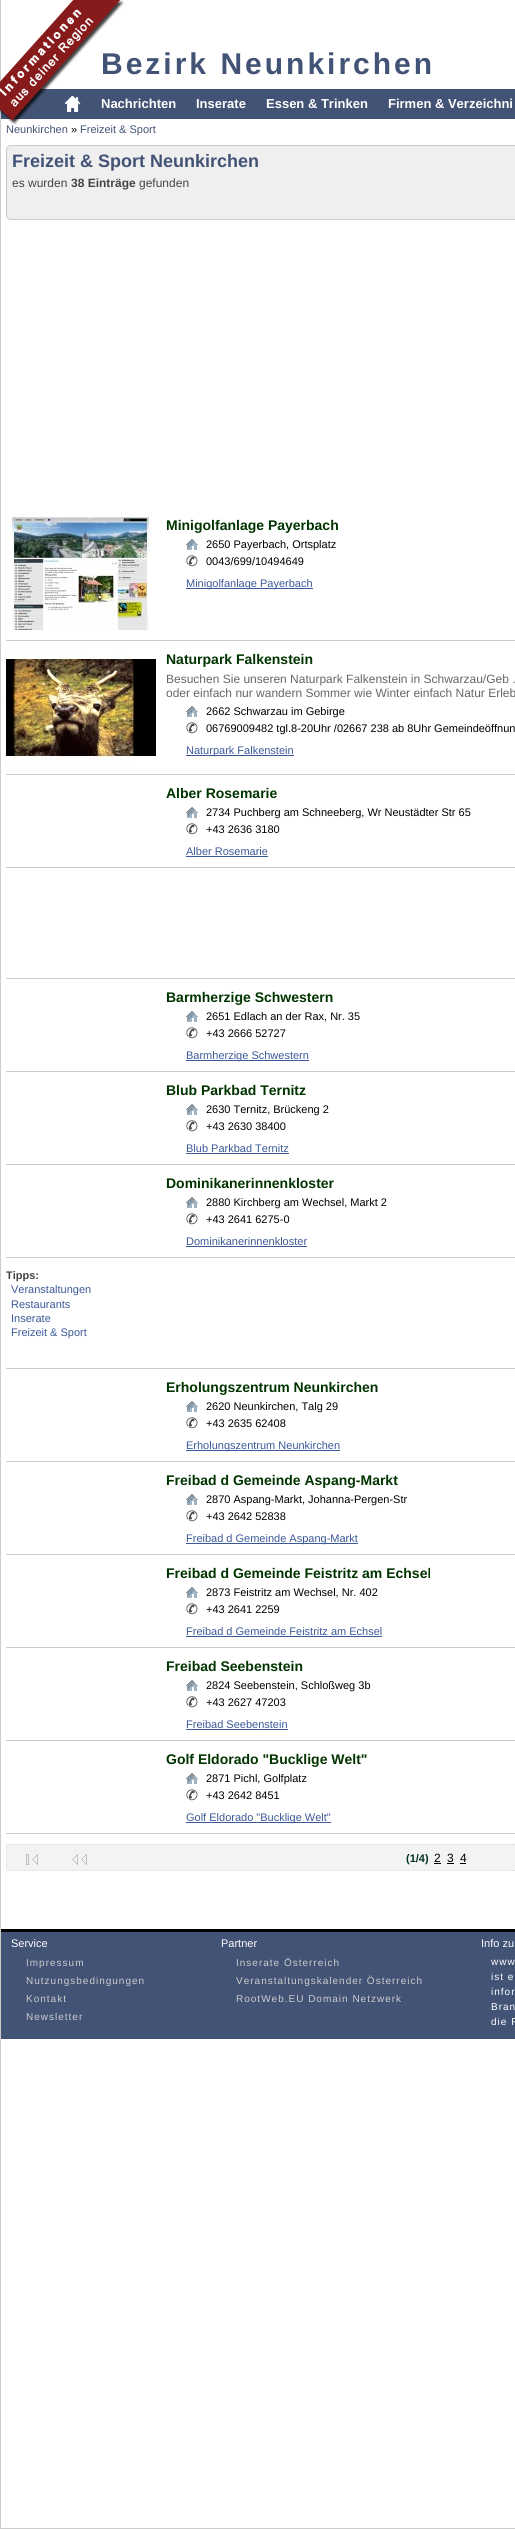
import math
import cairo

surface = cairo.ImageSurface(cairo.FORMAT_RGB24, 515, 2529)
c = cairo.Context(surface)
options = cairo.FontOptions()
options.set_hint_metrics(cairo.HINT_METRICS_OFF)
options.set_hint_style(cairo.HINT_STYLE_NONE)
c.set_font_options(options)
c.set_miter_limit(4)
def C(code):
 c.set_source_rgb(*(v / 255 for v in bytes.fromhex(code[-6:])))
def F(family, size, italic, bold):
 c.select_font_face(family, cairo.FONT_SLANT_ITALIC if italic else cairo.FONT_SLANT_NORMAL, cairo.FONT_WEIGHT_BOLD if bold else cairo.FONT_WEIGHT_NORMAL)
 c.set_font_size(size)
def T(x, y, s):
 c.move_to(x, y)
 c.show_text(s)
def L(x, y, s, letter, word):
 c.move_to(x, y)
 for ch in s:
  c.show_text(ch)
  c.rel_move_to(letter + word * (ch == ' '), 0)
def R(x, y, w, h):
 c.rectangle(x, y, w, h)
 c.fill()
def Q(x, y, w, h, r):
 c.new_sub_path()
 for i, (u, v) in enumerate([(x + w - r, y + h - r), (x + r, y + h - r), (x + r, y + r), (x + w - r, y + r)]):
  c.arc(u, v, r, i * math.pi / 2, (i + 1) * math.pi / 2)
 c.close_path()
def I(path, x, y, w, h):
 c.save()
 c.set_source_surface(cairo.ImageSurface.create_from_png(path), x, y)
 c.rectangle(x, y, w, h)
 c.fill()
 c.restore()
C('ffffff')
c.paint()
c.rectangle(.5,-.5,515,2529)
C('cccccc')
c.set_line_width(1)
c.stroke()
F('Liberation Sans',30,0,1)
C('425376')
L(101,74,'Bezirk Neunkirchen',3,0)
R(1,89,514,30)
I('2.png',65,96,16,16)
F('Liberation Sans',13,0,1)
C('ffffff')
T(101,108,'Nachrichten')
I('1.png',0,0,124,125)
T(196,108,'Inserate')
T(266,108,'Essen & Trinken')
T(388,108,'Firmen & Verzeichni')
F('Liberation Sans',11,0,0)
C('425376')
T(6,133,'Neunkirchen')
C('000000')
T(71,133,'»')
C('425376')
T(80,133,'Freizeit & Sport')
C('efefef')
Q(6.5,145.5,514,74,4.5)
c.fill_preserve()
C('cccccc')
c.stroke()
F('Liberation Sans',18,0,1)
C('425376')
T(12,167,'Freizeit & Sport Neunkirchen')
F('Liberation Sans',12,0,0)
C('444444')
T(12,187,'es wurden')
F('Liberation Sans',12,0,1)
T(71,187,'38 Einträge')
F('Liberation Sans',12,0,0)
T(139,187,'gefunden')
C('cccccc')
R(6,640,509,1)
I('3.png',6,517,144,113)
F('Liberation Sans',14,0,1)
C('003300')
T(166,530,'Minigolfanlage Payerbach')
I('4.png',186,539,12,11)
F('Liberation Sans',11,0,0)
C('000000')
T(206,548,'2650 Payerbach, Ortsplatz')
I('5.png',186,555,12,12)
T(206,565,'0043/699/10494649')
C('3b5998')
R(186,588,127,1)
T(186,587,'Minigolfanlage Payerbach')
C('cccccc')
R(6,774,509,1)
I('6.png',6,651,150,112)
F('Liberation Sans',14,0,1)
C('003300')
T(166,664,'Naturpark Falkenstein')
F('Liberation Sans',12,0,0)
C('666666')
T(166,683,'Besuchen Sie unseren Naturpark Falkenstein in Schwarzau/Geb .')
T(166,697,'oder einfach nur wandern Sommer wie Winter einfach Natur Erleb')
I('4.png',186,706,12,11)
F('Liberation Sans',11,0,0)
C('000000')
T(206,715,'2662 Schwarzau im Gebirge')
I('5.png',186,722,12,12)
T(206,732,'06769009482 tgl.8-20Uhr /02667 238 ab 8Uhr Gemeindeöffnun')
C('3b5998')
R(186,755,108,1)
T(186,754,'Naturpark Falkenstein')
C('cccccc')
R(6,867,509,1)
F('Liberation Sans',14,0,1)
C('003300')
T(166,798,'Alber Rosemarie')
I('4.png',186,807,12,11)
F('Liberation Sans',11,0,0)
C('000000')
T(206,816,'2734 Puchberg am Schneeberg, Wr Neustädter Str 65')
I('5.png',186,823,12,12)
T(206,833,'+43 2636 3180')
C('3b5998')
T(186,855,'Alber Rosemarie')
R(186,856,82,1)
C('cccccc')
R(6,978,509,1)
R(6,1071,509,1)
F('Liberation Sans',14,0,1)
C('003300')
T(166,1002,'Barmherzige Schwestern')
I('4.png',186,1011,12,11)
F('Liberation Sans',11,0,0)
C('000000')
T(206,1020,'2651 Edlach an der Rax, Nr. 35')
I('5.png',186,1027,12,12)
T(206,1037,'+43 2666 52727')
C('3b5998')
R(186,1060,123,1)
T(186,1059,'Barmherzige Schwestern')
C('cccccc')
R(6,1164,509,1)
F('Liberation Sans',14,0,1)
C('003300')
T(166,1095,'Blub Parkbad Ternitz')
I('4.png',186,1104,12,11)
F('Liberation Sans',11,0,0)
C('000000')
T(206,1113,'2630 Ternitz, Brückeng 2')
I('5.png',186,1120,12,12)
T(206,1130,'+43 2630 38400')
C('3b5998')
T(186,1152,'Blub Parkbad Ternitz')
R(186,1153,103,1)
C('cccccc')
R(6,1257,509,1)
F('Liberation Sans',14,0,1)
C('003300')
T(166,1188,'Dominikanerinnenkloster')
I('4.png',186,1197,12,11)
F('Liberation Sans',11,0,0)
C('000000')
T(206,1206,'2880 Kirchberg am Wechsel, Markt 2')
I('5.png',186,1213,12,12)
T(206,1223,'+43 2641 6275-0')
C('3b5998')
T(186,1245,'Dominikanerinnenkloster')
R(186,1246,121,1)
C('cccccc')
R(6,1368,509,1)
F('Liberation Sans',11,0,1)
C('444444')
T(6,1279,'Tipps:')
F('Liberation Sans',11,0,0)
C('3b5998')
T(11,1293,'Veranstaltungen')
T(11,1308,'Restaurants')
T(11,1322,'Inserate')
T(11,1336,'Freizeit & Sport')
C('cccccc')
R(6,1461,509,1)
F('Liberation Sans',14,0,1)
C('003300')
T(166,1392,'Erholungszentrum Neunkirchen')
I('4.png',186,1401,12,11)
F('Liberation Sans',11,0,0)
C('000000')
T(206,1410,'2620 Neunkirchen, Talg 29')
I('5.png',186,1417,12,12)
T(206,1427,'+43 2635 62408')
C('3b5998')
R(186,1450,154,1)
T(186,1449,'Erholungszentrum Neunkirchen')
C('cccccc')
R(6,1554,509,1)
F('Liberation Sans',14,0,1)
C('003300')
T(166,1485,'Freibad d Gemeinde Aspang-Markt')
I('4.png',186,1494,12,11)
F('Liberation Sans',11,0,0)
C('000000')
T(206,1503,'2870 Aspang-Markt, Johanna-Pergen-Str')
I('5.png',186,1510,12,12)
T(206,1520,'+43 2642 52838')
C('3b5998')
R(186,1543,172,1)
T(186,1542,'Freibad d Gemeinde Aspang-Markt')
C('cccccc')
R(6,1647,509,1)
F('Liberation Sans',14,0,1)
C('003300')
T(166,1578,'Freibad d Gemeinde Feistritz am Echsel')
I('4.png',186,1587,12,11)
F('Liberation Sans',11,0,0)
C('000000')
T(206,1596,'2873 Feistritz am Wechsel, Nr. 402')
I('5.png',186,1603,12,12)
T(206,1613,'+43 2641 2259')
C('3b5998')
T(186,1635,'Freibad d Gemeinde Feistritz am Echsel')
R(186,1636,196,1)
C('cccccc')
R(6,1740,509,1)
F('Liberation Sans',14,0,1)
C('003300')
T(166,1671,'Freibad Seebenstein')
I('4.png',186,1680,12,11)
F('Liberation Sans',11,0,0)
C('000000')
T(206,1689,'2824 Seebenstein, Schloßweg 3b')
I('5.png',186,1696,12,12)
T(206,1706,'+43 2627 47203')
C('3b5998')
T(186,1728,'Freibad Seebenstein')
R(186,1729,102,1)
C('cccccc')
R(6,1833,509,1)
F('Liberation Sans',14,0,1)
C('003300')
T(166,1764,'Golf Eldorado "Bucklige Welt"')
I('4.png',186,1773,12,11)
F('Liberation Sans',11,0,0)
C('000000')
T(206,1782,'2871 Pichl, Golfplatz')
I('5.png',186,1789,12,12)
T(206,1799,'+43 2642 8451')
C('3b5998')
R(186,1822,145,1)
T(186,1821,'Golf Eldorado "Bucklige Welt"')
C('f3f3f3')
R(6,1844,509,27)
c.new_path()
c.move_to(6,1844.5)
c.line_to(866,1844.5)
C('d9e0e4')
c.set_dash([1,1])
c.stroke()
c.new_path()
c.move_to(6,1870.5)
c.line_to(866,1870.5)
c.stroke()
c.new_path()
c.move_to(6.5,1844)
c.line_to(6.5,1871)
c.stroke()
I('7.png',26,1854,12,11)
I('8.png',72,1854,15,11)
F('Liberation Sans',11,0,1)
C('003320')
T(406,1862,'(1/4)')
F('Liberation Sans',12,0,0)
C('000000')
T(434,1862,'2')
R(434,1863,7,1)
T(447,1862,'3')
R(447,1863,7,1)
T(460,1862,'4')
R(460,1863,6,1)
C('425376')
R(1,1932,514,107)
C('000000')
R(1,1929,514,3)
F('Liberation Sans',11,0,0)
C('ffffff')
T(11,1947,'Service')
F('Liberation Sans',10,0,0)
C('cccccc')
L(26,1966,'Impressum',1,0)
L(26,1984,'Nutzungsbedingungen',1,0)
L(26,2002,'Kontakt',1,0)
L(26,2020,'Newsletter',1,0)
F('Liberation Sans',11,0,0)
C('ffffff')
T(221,1947,'Partner')
F('Liberation Sans',10,0,0)
C('cccccc')
L(236,1966,'Inserate Österreich',1,0)
L(236,1984,'Veranstaltungskalender Österreich',1,0)
L(236,2002,'RootWeb.EU Domain Netzwerk',1,0)
F('Liberation Sans',11,0,0)
C('ffffff')
T(481,1947,'Info zu')
F('Liberation Sans',10,0,0)
L(491,1965,'www',1,0)
L(491,1980,'ist e',1,0)
L(491,1995,'infor',1,0)
L(491,2010,'Bran',1,0)
L(491,2025,'die F',1,0)
surface.write_to_png('o.png')
